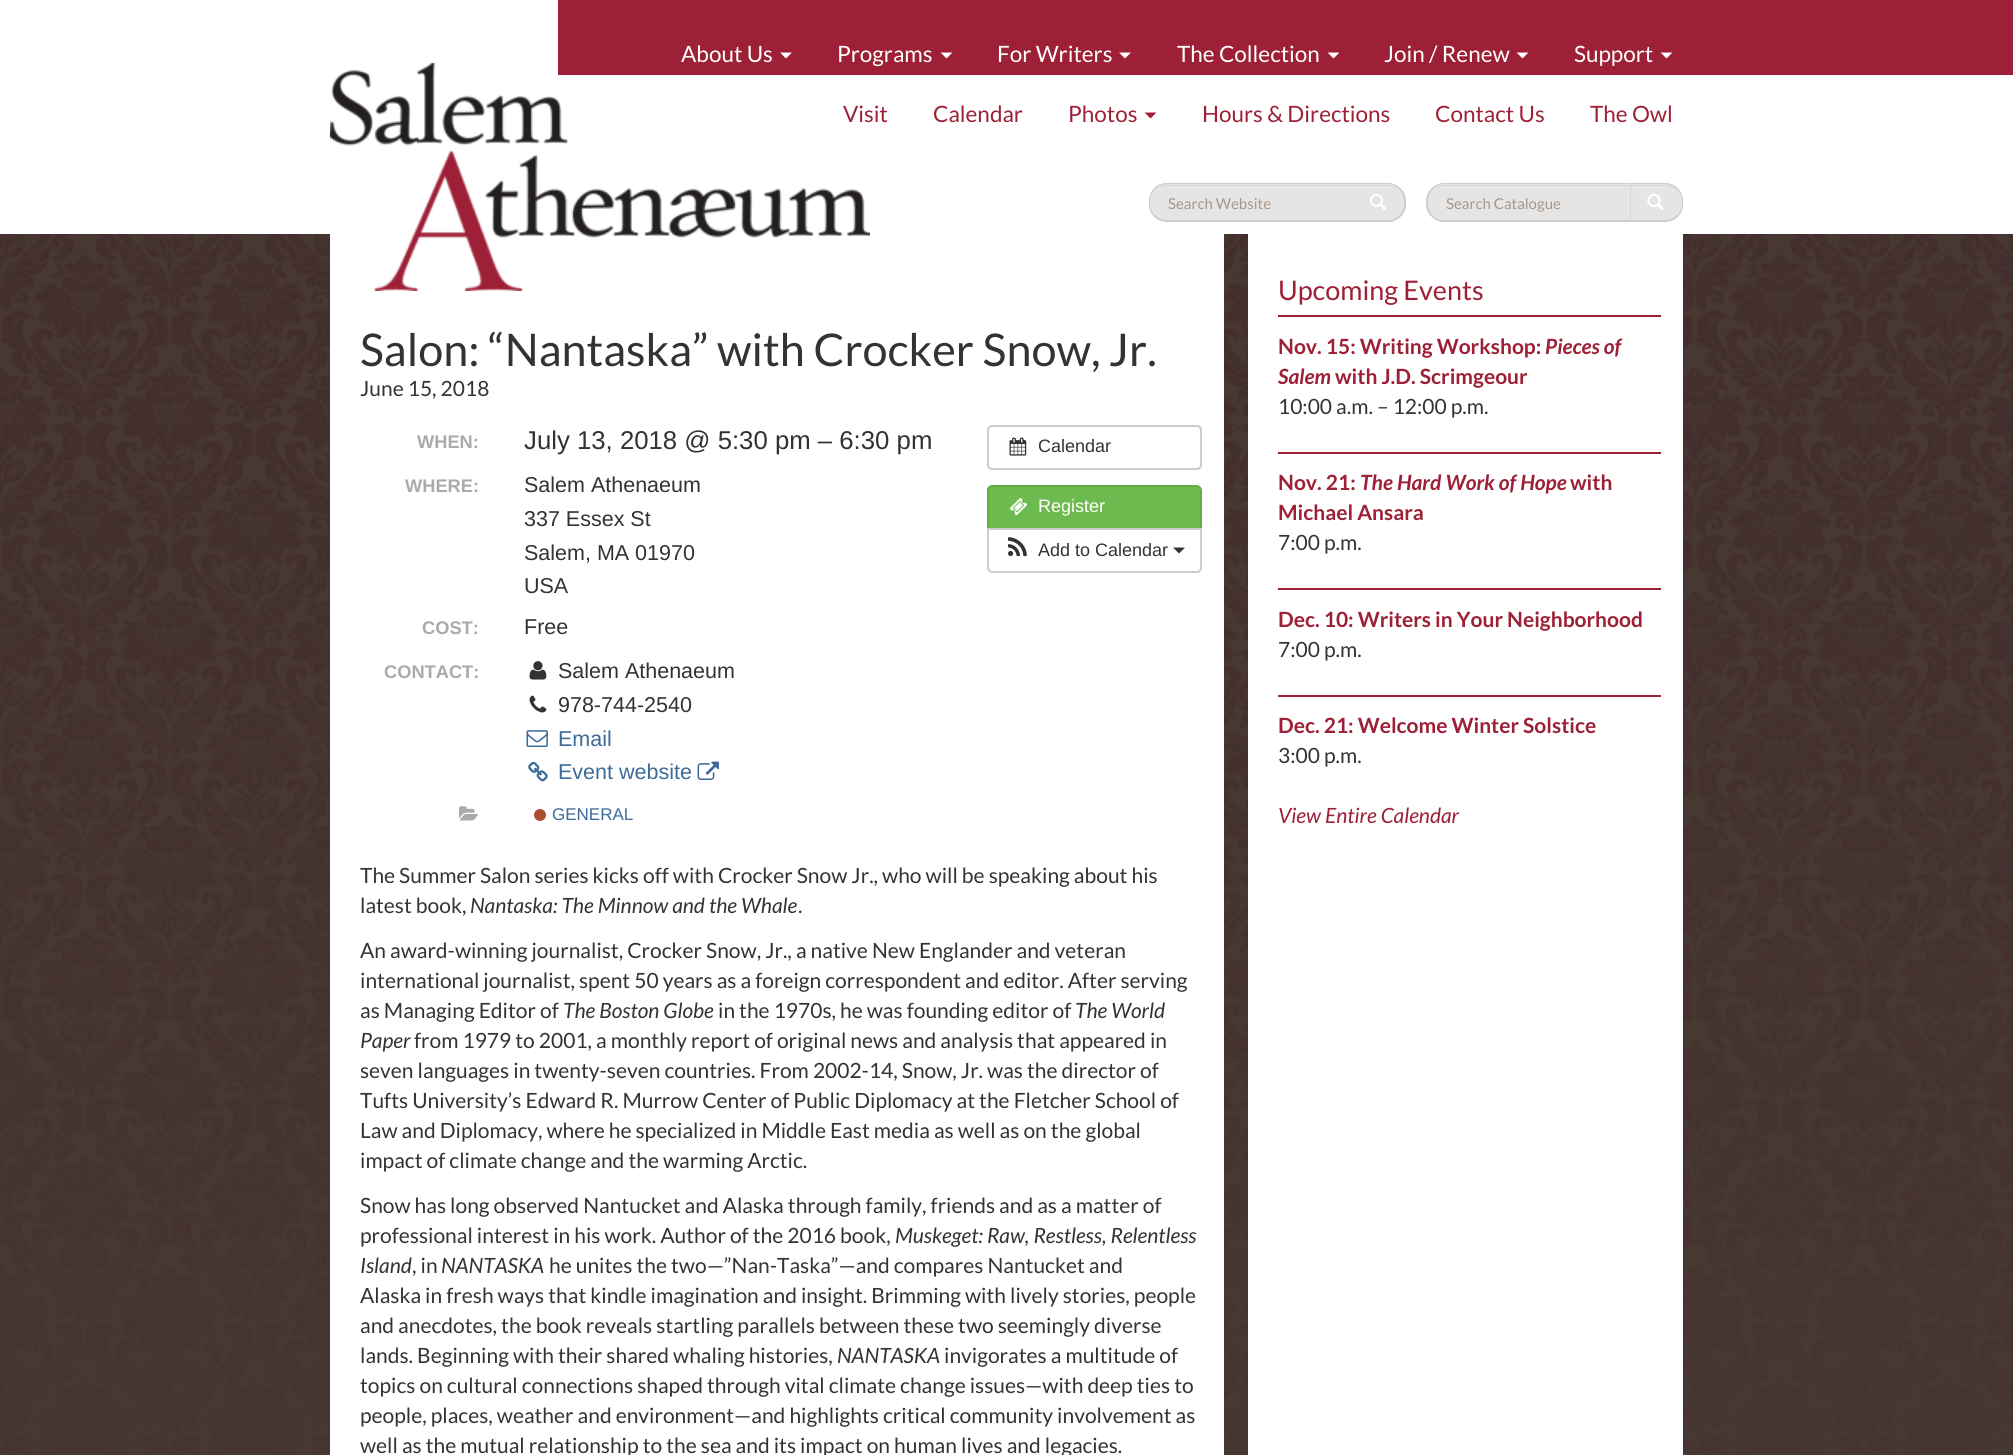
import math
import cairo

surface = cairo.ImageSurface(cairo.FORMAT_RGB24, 2013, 1455)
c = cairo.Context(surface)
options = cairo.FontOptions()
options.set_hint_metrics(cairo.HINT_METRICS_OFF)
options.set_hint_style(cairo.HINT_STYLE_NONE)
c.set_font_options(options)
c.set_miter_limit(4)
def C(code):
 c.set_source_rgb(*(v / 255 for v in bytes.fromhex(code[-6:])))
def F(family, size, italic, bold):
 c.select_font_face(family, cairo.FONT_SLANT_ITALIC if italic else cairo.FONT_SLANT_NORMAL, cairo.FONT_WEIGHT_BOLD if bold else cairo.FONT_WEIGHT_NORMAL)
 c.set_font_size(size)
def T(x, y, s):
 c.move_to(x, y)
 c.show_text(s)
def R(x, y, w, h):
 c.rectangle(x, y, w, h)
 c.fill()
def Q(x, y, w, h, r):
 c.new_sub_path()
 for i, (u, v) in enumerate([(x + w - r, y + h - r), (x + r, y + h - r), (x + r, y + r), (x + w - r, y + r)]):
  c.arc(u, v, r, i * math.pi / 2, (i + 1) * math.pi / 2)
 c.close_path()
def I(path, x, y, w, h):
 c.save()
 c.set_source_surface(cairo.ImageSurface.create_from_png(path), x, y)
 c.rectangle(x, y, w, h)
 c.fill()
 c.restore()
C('473832')
c.paint()
I('1.png',0,234,2013,1218)
C('ffffff')
R(0,0,2013,234)
C('9d2036')
R(558,0,1455,75)
F('Lato',22.5,0,0)
C('ffffff')
T(681,62,'About Us')
c.new_path()
c.move_to(780,52.5)
c.line_to(792,52.5)
c.line_to(786,58.5)
c.close_path()
c.fill()
R(330,234,894,1221)
I('2.png',330,63,540,228)
T(837,62,'Programs')
c.new_path()
c.move_to(940.5,52.5)
c.line_to(952.5,52.5)
c.line_to(946.5,58.5)
c.close_path()
c.fill()
T(997,62,'For Writers')
c.new_path()
c.move_to(1119,52.5)
c.line_to(1131,52.5)
c.line_to(1125,58.5)
c.close_path()
c.fill()
T(1177,62,'The Collection')
c.new_path()
c.move_to(1327.5,52.5)
c.line_to(1339.5,52.5)
c.line_to(1333.5,58.5)
c.close_path()
c.fill()
T(1384,62,'Join / Renew')
c.new_path()
c.move_to(1516.5,52.5)
c.line_to(1528.5,52.5)
c.line_to(1522.5,58.5)
c.close_path()
c.fill()
T(1574,62,'Support')
c.new_path()
c.move_to(1660.5,52.5)
c.line_to(1672.5,52.5)
c.line_to(1666.5,58.5)
c.close_path()
c.fill()
C('9d2036')
T(843,122,'Visit')
T(933,122,'Calendar')
T(1068,122,'Photos')
c.new_path()
c.move_to(1144.5,112.5)
c.line_to(1156.5,112.5)
c.line_to(1150.5,118.5)
c.close_path()
c.fill()
T(1202,122,'Hours & Directions')
T(1435,122,'Contact Us')
T(1590,122,'The Owl')
C('e6e5e5')
c.new_path()
c.move_to(1352,183)
c.line_to(1388,183)
c.curve_to(1398,183,1406,191,1406,201)
c.line_to(1406,204)
c.curve_to(1406,214,1398,222,1388,222)
c.line_to(1352,222)
c.close_path()
c.fill()
C('d5d4d4')
c.new_path()
c.move_to(1352,186)
c.line_to(1388,186)
c.curve_to(1396,186,1403,192,1404,200)
c.curve_to(1403,192,1396,185,1387,185)
c.line_to(1352,185)
c.close_path()
c.fill()
C('cccccc')
c.set_fill_rule(cairo.FILL_RULE_EVEN_ODD)
c.new_path()
c.move_to(1352,183)
c.line_to(1388,183)
c.curve_to(1397,183,1406,191,1406,201)
c.line_to(1406,204)
c.curve_to(1406,214,1397,222,1388,222)
c.line_to(1352,222)
c.close_path()
c.move_to(1352,184)
c.line_to(1388,184)
c.curve_to(1397,184,1404,192,1404,201)
c.line_to(1404,204)
c.curve_to(1404,213,1397,220,1388,220)
c.line_to(1352,220)
c.close_path()
c.fill()
C('e6e5e5')
c.new_path()
c.move_to(1167,183)
c.line_to(1353,183)
c.line_to(1353,222)
c.line_to(1167,222)
c.curve_to(1157,222,1149,214,1149,204)
c.line_to(1149,201)
c.curve_to(1149,191,1157,183,1167,183)
c.close_path()
c.fill()
C('d5d4d4')
c.set_fill_rule(cairo.FILL_RULE_WINDING)
c.new_path()
c.move_to(1167,186)
c.line_to(1353,186)
c.line_to(1353,185)
c.line_to(1168,185)
c.curve_to(1164,185,1159,187,1156,190)
c.curve_to(1159,187,1163,186,1167,186)
c.close_path()
c.fill()
C('cccccc')
c.set_fill_rule(cairo.FILL_RULE_EVEN_ODD)
c.new_path()
c.move_to(1167,183)
c.line_to(1353,183)
c.line_to(1353,222)
c.line_to(1167,222)
c.curve_to(1157,222,1149,214,1149,204)
c.line_to(1149,201)
c.curve_to(1149,191,1157,183,1167,183)
c.close_path()
c.move_to(1167,184)
c.line_to(1353,184)
c.line_to(1353,220)
c.line_to(1167,220)
c.curve_to(1158,220,1150,213,1150,204)
c.line_to(1150,201)
c.curve_to(1150,192,1158,184,1167,184)
c.close_path()
c.fill()
F('Lato',15,0,0)
C('a89687')
T(1168,209,'Search Website')
I('3.png',1369,193,17,17)
C('e6e5e5')
c.new_path()
c.move_to(1629,183)
c.line_to(1665,183)
c.curve_to(1675,183,1683,191,1683,201)
c.line_to(1683,204)
c.curve_to(1683,214,1675,222,1665,222)
c.line_to(1629,222)
c.close_path()
c.fill()
C('d5d4d4')
c.set_fill_rule(cairo.FILL_RULE_WINDING)
c.new_path()
c.move_to(1629,186)
c.line_to(1665,186)
c.curve_to(1674,186,1682,193,1682,202)
c.curve_to(1682,193,1674,185,1665,185)
c.line_to(1629,185)
c.close_path()
c.fill()
C('cccccc')
c.set_fill_rule(cairo.FILL_RULE_EVEN_ODD)
c.new_path()
c.move_to(1629,183)
c.line_to(1665,183)
c.curve_to(1675,183,1683,191,1683,201)
c.line_to(1683,204)
c.curve_to(1683,214,1675,222,1665,222)
c.line_to(1629,222)
c.close_path()
c.move_to(1629,184)
c.line_to(1665,184)
c.curve_to(1674,184,1682,192,1682,201)
c.line_to(1682,204)
c.curve_to(1682,213,1674,220,1665,220)
c.line_to(1629,220)
c.close_path()
c.fill()
C('e6e5e5')
c.new_path()
c.move_to(1445,183)
c.line_to(1631,183)
c.line_to(1631,222)
c.line_to(1445,222)
c.curve_to(1435,222,1427,214,1427,204)
c.line_to(1427,201)
c.curve_to(1427,191,1435,183,1445,183)
c.close_path()
c.fill()
C('d5d4d4')
c.set_fill_rule(cairo.FILL_RULE_WINDING)
c.new_path()
c.move_to(1444,186)
c.line_to(1630,186)
c.line_to(1630,221)
c.line_to(1631,221)
c.line_to(1631,185)
c.line_to(1445,185)
c.curve_to(1436,185,1429,192,1428,200)
c.curve_to(1429,192,1436,186,1444,186)
c.close_path()
c.fill()
C('cccccc')
c.set_fill_rule(cairo.FILL_RULE_EVEN_ODD)
c.new_path()
c.move_to(1444,183)
c.line_to(1630,183)
c.line_to(1630,222)
c.line_to(1444,222)
c.curve_to(1435,222,1426,214,1426,204)
c.line_to(1426,201)
c.curve_to(1426,191,1435,183,1444,183)
c.close_path()
c.move_to(1444,184)
c.line_to(1630,184)
c.line_to(1630,220)
c.line_to(1444,220)
c.curve_to(1435,220,1428,213,1428,204)
c.line_to(1428,201)
c.curve_to(1428,192,1435,184,1444,184)
c.close_path()
c.fill()
C('a89687')
T(1446,209,'Search Catalogue')
I('4.png',1647,194,17,16)
F('Lato',45,0,0)
C('333333')
T(360,366,'Salon: “Nantaska” with Crocker Snow, Jr.')
F('Lato',21,0,0)
T(360,396,'June 15, 2018')
F('Liberation Sans',18.25,0,1)
C('aaaaaa')
T(417,448,'WHEN:')
F('Liberation Sans',25.75,0,0)
C('333333')
T(524,449,'July 13, 2018 @ 5:30 pm – 6:30 pm')
F('Liberation Sans',18.25,0,1)
C('aaaaaa')
T(405,492,'WHERE:')
F('Liberation Sans',21.5,0,0)
C('333333')
T(524,492,'Salem Athenaeum')
T(524,526,'337 Essex St')
T(524,560,'Salem, MA 01970')
T(524,593,'USA')
F('Liberation Sans',18.25,0,1)
C('aaaaaa')
T(422,634,'COST:')
F('Liberation Sans',21.5,0,0)
C('333333')
T(524,634,'Free')
F('Liberation Sans',18.25,0,1)
C('aaaaaa')
T(384,678,'CONTACT:')
I('5.png',529,661,18,19)
F('Liberation Sans',21.5,0,0)
C('333333')
T(558,678,'Salem Athenaeum')
I('6.png',529,695,18,18)
T(558,712,'978-744-2540')
I('7.png',526,730,22,17)
C('3d6b99')
T(558,746,'Email')
I('8.png',528,761,20,21)
T(558,779,'Event website')
I('9.png',697,761,22,19)
I('10.png',459,806,19,15)
C('ad4e33')
c.arc(540,815,6,0,2 * math.pi)
c.fill()
F('Liberation Sans',17,0,0)
C('3d6b99')
T(552,820,'GENERAL')
Q(988,426,213,43,4)
C('cccccc')
c.stroke()
I('11.png',1009,437,18,19)
F('Liberation Sans',18,0,0)
C('333333')
T(1038,452,'Calendar')
C('6dbb4f')
c.new_path()
c.move_to(992,486)
c.line_to(1196,486)
c.curve_to(1199,486,1201,488,1201,491)
c.line_to(1201,529)
c.line_to(988,529)
c.line_to(988,490)
c.curve_to(988,488,990,486,992,486)
c.close_path()
c.fill_preserve()
C('61ad43')
c.stroke()
I('12.png',1010,498,17,17)
C('ffffff')
T(1038,512,'Register')
c.new_path()
c.move_to(988,529)
c.line_to(1201,529)
c.line_to(1201,568)
c.curve_to(1201,570,1199,572,1197,572)
c.line_to(993,572)
c.curve_to(990,572,988,570,988,567)
c.close_path()
c.fill_preserve()
C('cccccc')
c.stroke()
I('13.png',1008,537,19,20)
C('333333')
T(1038,556,'Add to Calendar')
c.set_fill_rule(cairo.FILL_RULE_WINDING)
c.new_path()
c.move_to(1173,547.5)
c.line_to(1185,547.5)
c.line_to(1179,553.5)
c.close_path()
c.fill()
F('Lato',21,0,0)
T(360,883,'The Summer Salon series kicks off with Crocker Snow Jr., who will be speaking about his')
T(360,913,'latest book,')
F('Lato',21,1,0)
T(470,913,'Nantaska: The Minnow and the Whale')
F('Lato',21,0,0)
T(798,913,'.')
T(360,958,'An award-winning journalist, Crocker Snow, Jr., a native New Englander and veteran')
T(360,988,'international journalist, spent 50 years as a foreign correspondent and editor. After serving')
T(360,1018,'as Managing Editor of')
F('Lato',21,1,0)
T(563,1018,'The Boston Globe')
F('Lato',21,0,0)
T(718,1018,'in the 1970s, he was founding editor of')
F('Lato',21,1,0)
T(1075,1018,'The World')
T(360,1048,'Paper')
F('Lato',21,0,0)
T(414,1048,'from 1979 to 2001, a monthly report of original news and analysis that appeared in')
T(360,1078,'seven languages in twenty-seven countries. From 2002-14, Snow, Jr. was the director of')
T(360,1108,'Tufts University’s Edward R. Murrow Center of Public Diplomacy at the Fletcher School of')
T(360,1138,'Law and Diplomacy, where he specialized in Middle East media as well as on the global')
T(360,1168,'impact of climate change and the warming Arctic.')
T(360,1213,'Snow has long observed Nantucket and Alaska through family, friends and as a matter of')
T(360,1243,'professional interest in his work. Author of the 2016 book,')
F('Lato',21,1,0)
T(895,1243,'Muskeget: Raw, Restless, Relentless')
T(360,1273,'Island')
F('Lato',21,0,0)
T(412,1273,', in')
F('Lato',21,1,0)
T(441,1273,'NANTASKA')
F('Lato',21,0,0)
T(549,1273,'he unites the two—”Nan-Taska”—and compares Nantucket and')
T(360,1303,'Alaska in fresh ways that kindle imagination and insight. Brimming with lively stories, people')
T(360,1333,'and anecdotes, the book reveals startling parallels between these two seemingly diverse')
T(360,1363,'lands. Beginning with their shared whaling histories,')
F('Lato',21,1,0)
T(837,1363,'NANTASKA')
F('Lato',21,0,0)
T(944,1363,'invigorates a multitude of')
T(360,1393,'topics on cultural connections shaped through vital climate change issues—with deep ties to')
T(360,1423,'people, places, weather and environment—and highlights critical community involvement as')
T(360,1453,'well as the mutual relationship to the sea and its impact on human lives and legacies.')
C('ffffff')
R(1248,234,435,1221)
F('Lato',27,0,0)
C('9d2036')
T(1278,300,'Upcoming Events')
R(1278,315,383,2)
F('Lato',21,0,1)
T(1278,354,'Nov. 15: Writing Workshop:')
F('Lato',21,1,1)
T(1545,354,'Pieces of')
T(1278,384,'Salem')
F('Lato',21,0,1)
T(1335,384,'with J.D. Scrimgeour')
F('Lato',21,0,0)
C('333333')
T(1278,414,'10:00 a.m. – 12:00 p.m.')
C('9d2036')
R(1278,452,383,2)
F('Lato',21,0,1)
T(1278,490,'Nov. 21:')
F('Lato',21,1,1)
T(1360,490,'The Hard Work of Hope')
F('Lato',21,0,1)
T(1570,490,'with')
T(1278,520,'Michael Ansara')
F('Lato',21,0,0)
C('333333')
T(1278,550,'7:00 p.m.')
C('9d2036')
R(1278,588,383,2)
F('Lato',21,0,1)
T(1278,627,'Dec. 10: Writers in Your Neighborhood')
F('Lato',21,0,0)
C('333333')
T(1278,657,'7:00 p.m.')
C('9d2036')
R(1278,695,383,2)
F('Lato',21,0,1)
T(1278,733,'Dec. 21: Welcome Winter Solstice')
F('Lato',21,0,0)
C('333333')
T(1278,763,'3:00 p.m.')
F('Lato',21,1,0)
C('9d2036')
T(1278,823,'View Entire Calendar')
surface.write_to_png('o.png')
